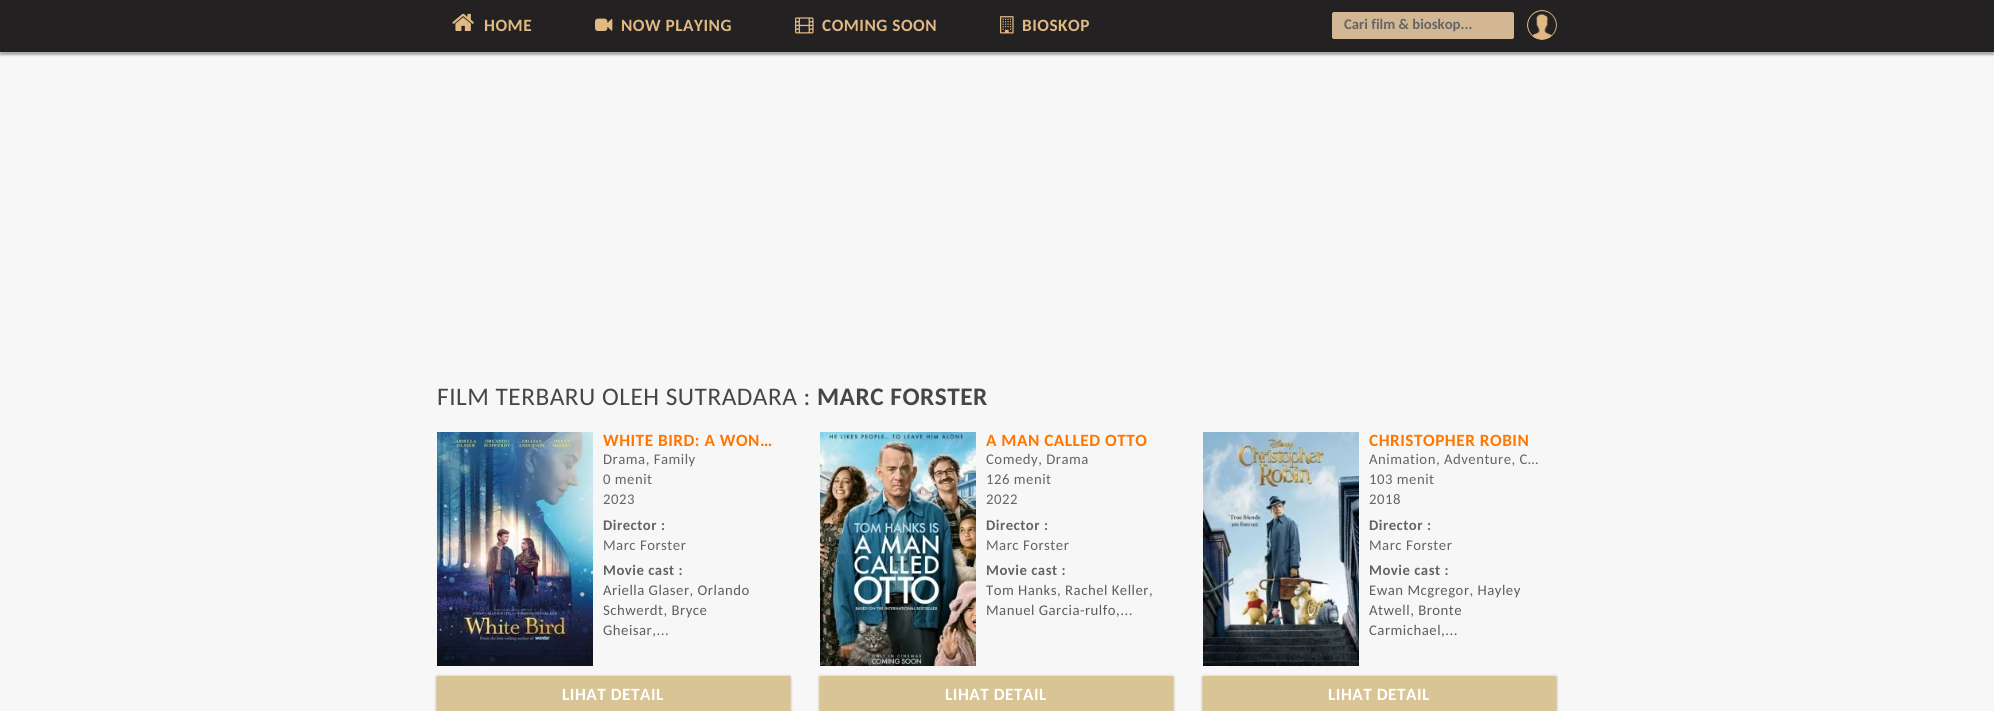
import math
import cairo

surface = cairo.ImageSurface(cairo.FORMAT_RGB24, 1994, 711)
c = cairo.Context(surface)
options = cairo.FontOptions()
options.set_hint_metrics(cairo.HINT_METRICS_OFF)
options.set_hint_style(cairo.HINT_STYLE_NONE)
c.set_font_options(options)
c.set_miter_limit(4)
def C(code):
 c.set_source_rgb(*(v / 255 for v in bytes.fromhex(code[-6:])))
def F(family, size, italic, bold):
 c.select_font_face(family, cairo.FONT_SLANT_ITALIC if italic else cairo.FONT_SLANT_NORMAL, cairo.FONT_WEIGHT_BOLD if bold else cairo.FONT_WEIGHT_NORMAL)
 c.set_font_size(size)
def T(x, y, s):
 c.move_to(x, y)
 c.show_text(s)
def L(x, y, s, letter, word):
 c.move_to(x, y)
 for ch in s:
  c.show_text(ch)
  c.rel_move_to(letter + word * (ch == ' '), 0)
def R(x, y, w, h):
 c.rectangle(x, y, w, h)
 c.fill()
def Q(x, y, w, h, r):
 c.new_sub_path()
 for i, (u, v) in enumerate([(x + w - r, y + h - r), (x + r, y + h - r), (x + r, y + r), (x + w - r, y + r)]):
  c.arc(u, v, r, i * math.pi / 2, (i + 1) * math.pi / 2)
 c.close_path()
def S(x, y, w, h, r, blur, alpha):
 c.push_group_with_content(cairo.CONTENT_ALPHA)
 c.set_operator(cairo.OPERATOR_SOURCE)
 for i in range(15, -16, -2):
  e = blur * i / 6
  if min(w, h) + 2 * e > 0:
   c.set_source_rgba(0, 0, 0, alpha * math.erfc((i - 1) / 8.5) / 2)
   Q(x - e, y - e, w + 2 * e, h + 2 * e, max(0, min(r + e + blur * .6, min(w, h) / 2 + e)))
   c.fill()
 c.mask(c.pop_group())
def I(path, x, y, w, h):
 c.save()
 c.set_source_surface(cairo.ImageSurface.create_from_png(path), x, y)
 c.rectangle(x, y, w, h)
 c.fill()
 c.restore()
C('f7f7f7')
c.paint()
C('aaaaaa')
S(0,3,1994,52,0,1,1)
C('232121')
R(0,0,1994,52)
I('1.png',452,13,22,18)
F('Carlito',17.25,0,1)
C('e1b985')
L(484,31,'HOME',.5,0)
I('2.png',595,18,18,13)
L(621,31,'NOW PLAYING',.5,0)
I('3.png',795,17,19,17)
L(822,31,'COMING SOON',.5,0)
I('4.png',1000,16,14,18)
L(1022,31,'BIOSKOP',.5,0)
C('d3b794')
Q(1332,12,182,27,2)
c.fill()
F('Carlito',14.75,0,1)
C('656464')
T(1344,29,'Cari film & bioskop...')
I('5.png',1527,10,30,30)
F('Carlito',25.3,0,0)
C('464646')
L(437,405,'FILM TERBARU OLEH SUTRADARA :',.5,0)
F('Carlito',25.3,0,1)
L(817,405,'MARC FORSTER',.5,0)
I('6.png',437,432,156,234)
F('Carlito',17.25,0,1)
C('ff7600')
L(603,446,'WHITE BIRD: A WON…',.5,0)
F('Carlito',14.75,0,0)
C('656464')
L(603,464,'Drama, Family',.5,0)
L(603,484,'0 menit',.5,0)
L(603,504,'2023',.5,0)
F('Carlito',14.75,0,1)
L(603,530,'Director :',.5,0)
F('Carlito',14.75,0,0)
L(603,550,'Marc Forster',.5,0)
F('Carlito',14.75,0,1)
L(603,575,'Movie cast :',.5,0)
F('Carlito',14.75,0,0)
C('5d5d5d')
L(603,595,'Ariella Glaser, Orlando',.5,0)
L(603,615,'Schwerdt, Bryce',.5,0)
L(603,635,'Gheisar,...',.5,0)
C('a7873d')
S(437,677,353,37,0,1.5,1)
C('d8c495')
R(437,676,353,35)
F('Carlito',17.25,0,1)
C('ffffff')
L(562,700,'LIHAT DETAIL',.5,0)
I('7.png',820,432,156,234)
C('ff7600')
L(986,446,'A MAN CALLED OTTO',.5,0)
F('Carlito',14.75,0,0)
C('656464')
L(986,464,'Comedy, Drama',.5,0)
L(986,484,'126 menit',.5,0)
L(986,504,'2022',.5,0)
F('Carlito',14.75,0,1)
L(986,530,'Director :',.5,0)
F('Carlito',14.75,0,0)
L(986,550,'Marc Forster',.5,0)
F('Carlito',14.75,0,1)
L(986,575,'Movie cast :',.5,0)
F('Carlito',14.75,0,0)
C('5d5d5d')
L(986,595,'Tom Hanks, Rachel Keller,',.5,0)
L(986,615,'Manuel Garcia-rulfo,...',.5,0)
C('a7873d')
S(820,677,353,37,0,1.5,1)
C('d8c495')
R(820,676,353,35)
F('Carlito',17.25,0,1)
C('ffffff')
L(945,700,'LIHAT DETAIL',.5,0)
I('8.png',1203,432,156,234)
C('ff7600')
L(1369,446,'CHRISTOPHER ROBIN',.5,0)
F('Carlito',14.75,0,0)
C('656464')
L(1369,464,'Animation, Adventure, C…',.5,0)
L(1369,484,'103 menit',.5,0)
L(1369,504,'2018',.5,0)
F('Carlito',14.75,0,1)
L(1369,530,'Director :',.5,0)
F('Carlito',14.75,0,0)
L(1369,550,'Marc Forster',.5,0)
F('Carlito',14.75,0,1)
L(1369,575,'Movie cast :',.5,0)
F('Carlito',14.75,0,0)
C('5d5d5d')
L(1369,595,'Ewan Mcgregor, Hayley',.5,0)
L(1369,615,'Atwell, Bronte',.5,0)
L(1369,635,'Carmichael,...',.5,0)
C('a7873d')
S(1203,677,353,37,0,1.5,1)
C('d8c495')
R(1203,676,353,35)
F('Carlito',17.25,0,1)
C('ffffff')
L(1328,700,'LIHAT DETAIL',.5,0)
surface.write_to_png('o.png')
